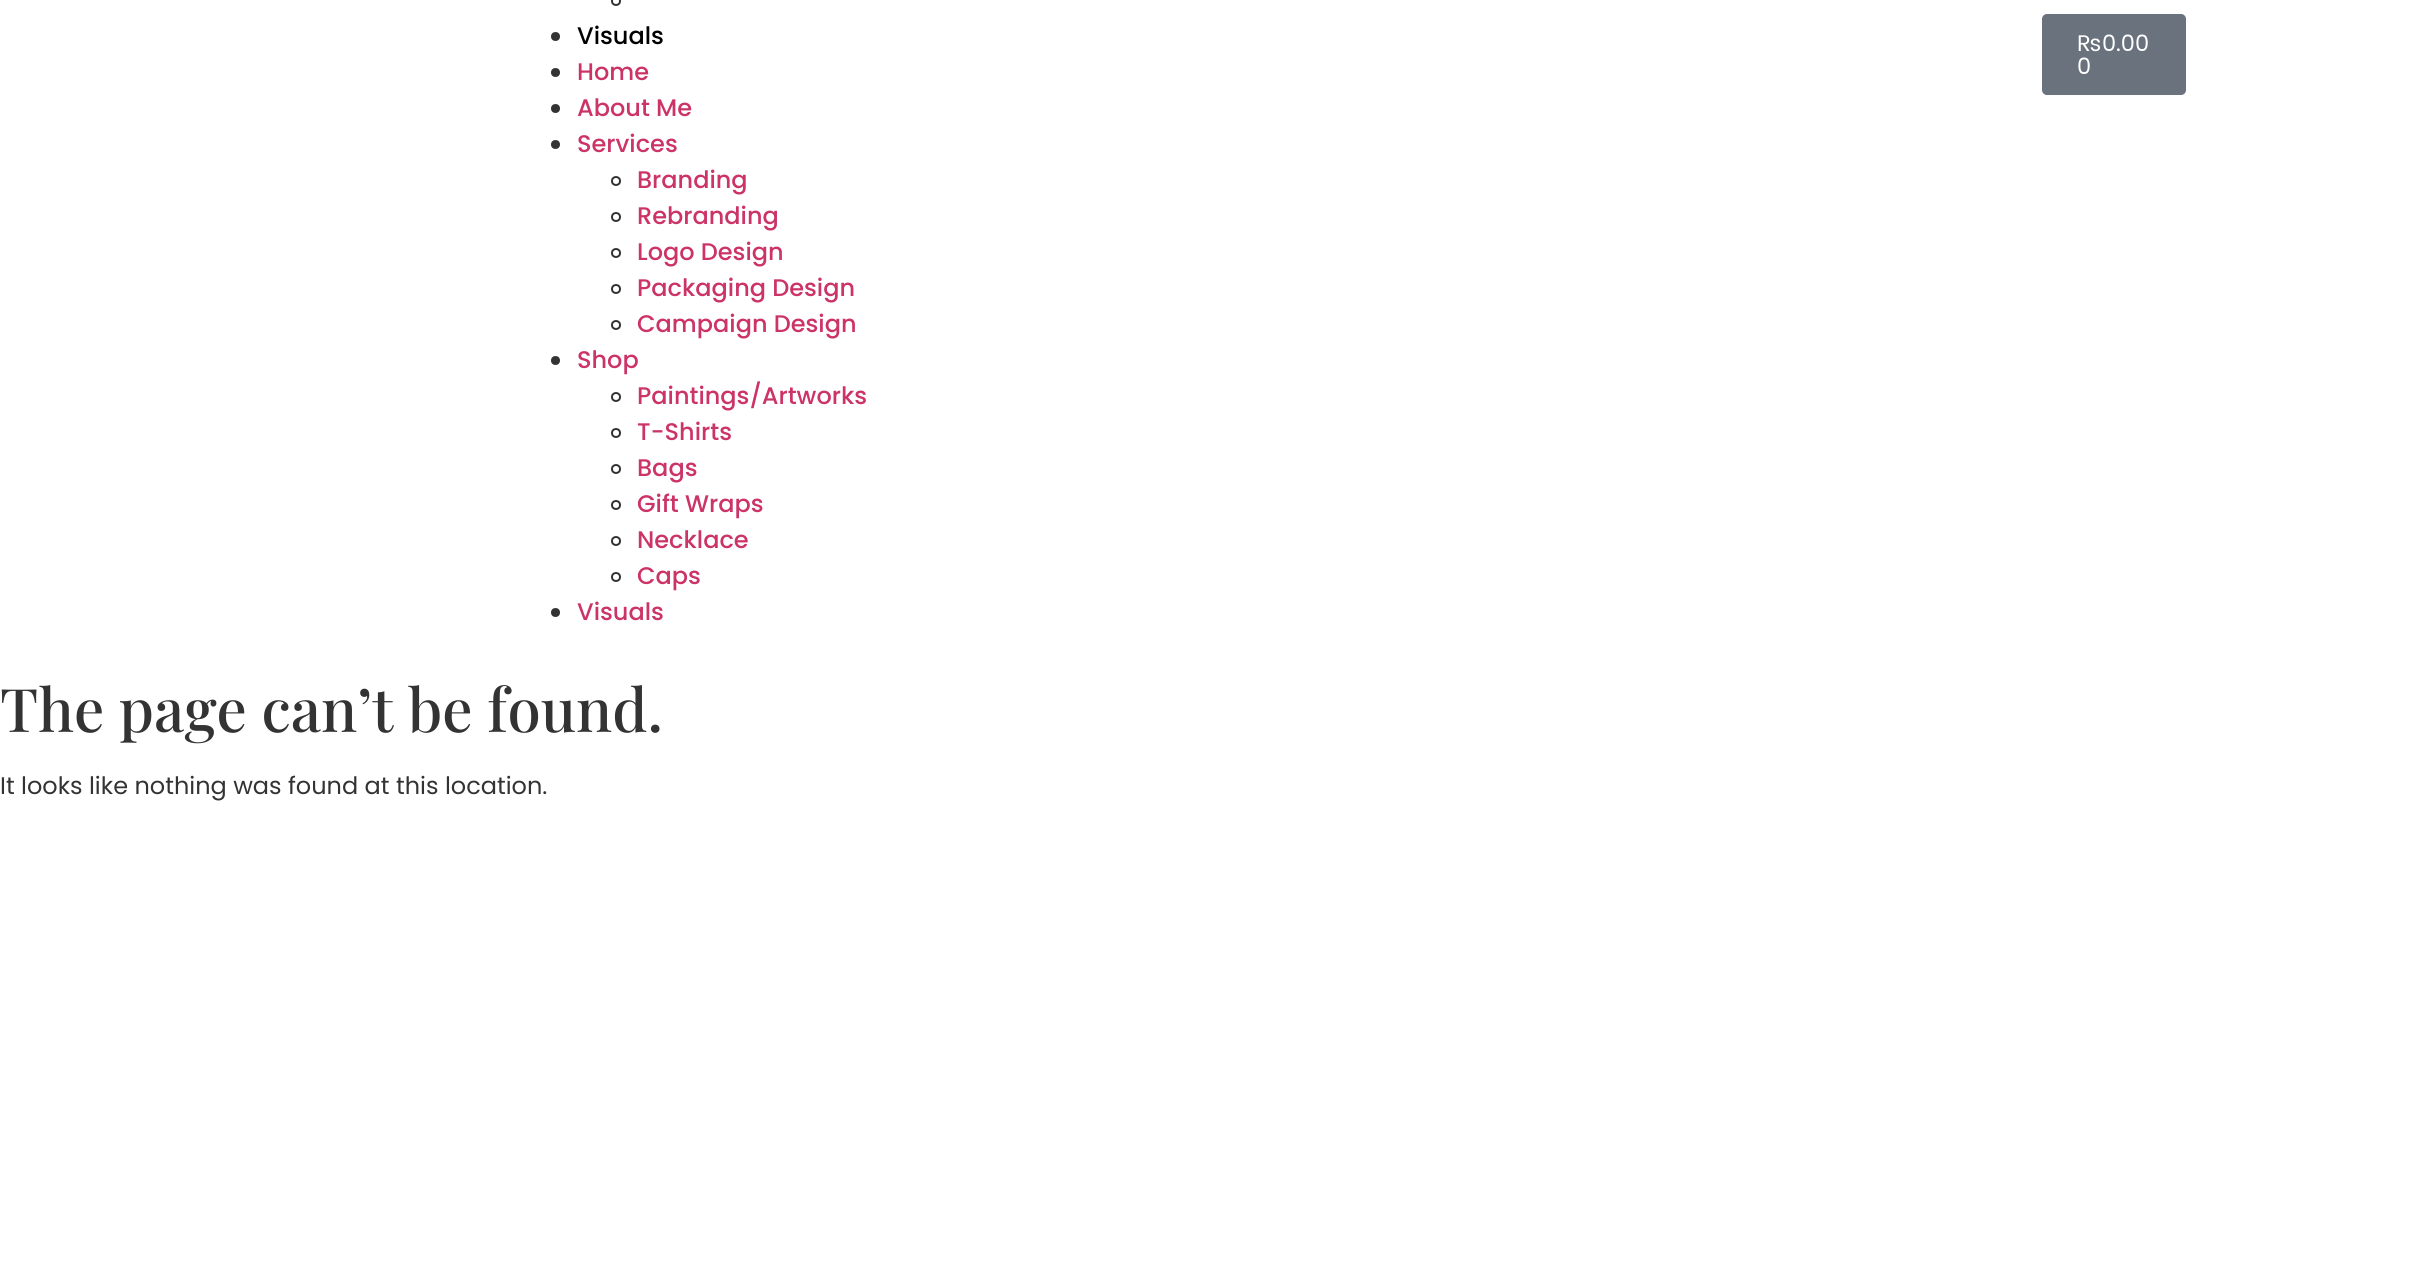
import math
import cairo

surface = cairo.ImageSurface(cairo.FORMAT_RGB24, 2425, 1277)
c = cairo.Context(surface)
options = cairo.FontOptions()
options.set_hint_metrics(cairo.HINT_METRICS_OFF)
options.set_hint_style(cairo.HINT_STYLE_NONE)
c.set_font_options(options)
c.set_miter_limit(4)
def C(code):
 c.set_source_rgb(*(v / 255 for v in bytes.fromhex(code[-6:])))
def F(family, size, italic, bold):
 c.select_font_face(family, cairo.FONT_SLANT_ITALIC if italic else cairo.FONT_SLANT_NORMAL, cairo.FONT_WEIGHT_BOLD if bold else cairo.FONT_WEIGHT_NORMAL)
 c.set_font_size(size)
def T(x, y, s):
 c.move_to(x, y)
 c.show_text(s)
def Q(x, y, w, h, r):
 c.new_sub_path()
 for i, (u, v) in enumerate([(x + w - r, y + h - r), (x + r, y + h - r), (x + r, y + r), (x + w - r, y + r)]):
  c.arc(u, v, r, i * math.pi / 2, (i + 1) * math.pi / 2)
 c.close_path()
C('ffffff')
c.paint()
c.arc(616,1,4,0,2 * math.pi)
C('333333')
c.stroke()
c.arc(555.5,36.5,4.5,0,2 * math.pi)
c.fill()
F('Poppins Medium',24,0,0)
C('000000')
T(577,44,'Visuals')
C('333333')
c.new_path()
c.arc(555.5,72.5,4.5,0,2 * math.pi)
c.fill()
C('cc3366')
T(577,80,'Home')
C('333333')
c.new_path()
c.arc(555.5,108.5,4.5,0,2 * math.pi)
c.fill()
C('cc3366')
T(577,116,'About Me')
C('333333')
c.new_path()
c.arc(555.5,144.5,4.5,0,2 * math.pi)
c.fill()
C('cc3366')
T(577,152,'Services')
c.new_path()
c.arc(616,181,4,0,2 * math.pi)
C('333333')
c.stroke()
C('cc3366')
T(637,188,'Branding')
c.new_path()
c.arc(616,217,4,0,2 * math.pi)
C('333333')
c.stroke()
C('cc3366')
T(637,224,'Rebranding')
c.new_path()
c.arc(616,253,4,0,2 * math.pi)
C('333333')
c.stroke()
C('cc3366')
T(637,260,'Logo Design')
c.new_path()
c.arc(616,289,4,0,2 * math.pi)
C('333333')
c.stroke()
C('cc3366')
T(637,296,'Packaging Design')
c.new_path()
c.arc(616,325,4,0,2 * math.pi)
C('333333')
c.stroke()
C('cc3366')
T(637,332,'Campaign Design')
C('333333')
c.new_path()
c.arc(555.5,360.5,4.5,0,2 * math.pi)
c.fill()
C('cc3366')
T(577,368,'Shop')
c.new_path()
c.arc(616,397,4,0,2 * math.pi)
C('333333')
c.stroke()
C('cc3366')
T(637,404,'Paintings/Artworks')
c.new_path()
c.arc(616,433,4,0,2 * math.pi)
C('333333')
c.stroke()
C('cc3366')
T(637,440,'T-Shirts')
c.new_path()
c.arc(616,469,4,0,2 * math.pi)
C('333333')
c.stroke()
C('cc3366')
T(637,476,'Bags')
c.new_path()
c.arc(616,505,4,0,2 * math.pi)
C('333333')
c.stroke()
C('cc3366')
T(637,512,'Gift Wraps')
c.new_path()
c.arc(616,541,4,0,2 * math.pi)
C('333333')
c.stroke()
C('cc3366')
T(637,548,'Necklace')
c.new_path()
c.arc(616,577,4,0,2 * math.pi)
C('333333')
c.stroke()
C('cc3366')
T(637,584,'Caps')
C('333333')
c.new_path()
c.arc(555.5,612.5,4.5,0,2 * math.pi)
c.fill()
C('cc3366')
T(577,620,'Visuals')
C('69727d')
Q(2042,14,144,81,5)
c.fill()
F('Poppins',22.5,0,0)
C('ffffff')
T(2077,51,'₨0.00')
T(2077,74,'0')
F('Playfair Display Medium',60,0,0)
C('333333')
T(0,732,'The page can’t be found.')
F('Poppins',24,0,0)
T(0,794,'It looks like nothing was found at this location.')
surface.write_to_png('o.png')
